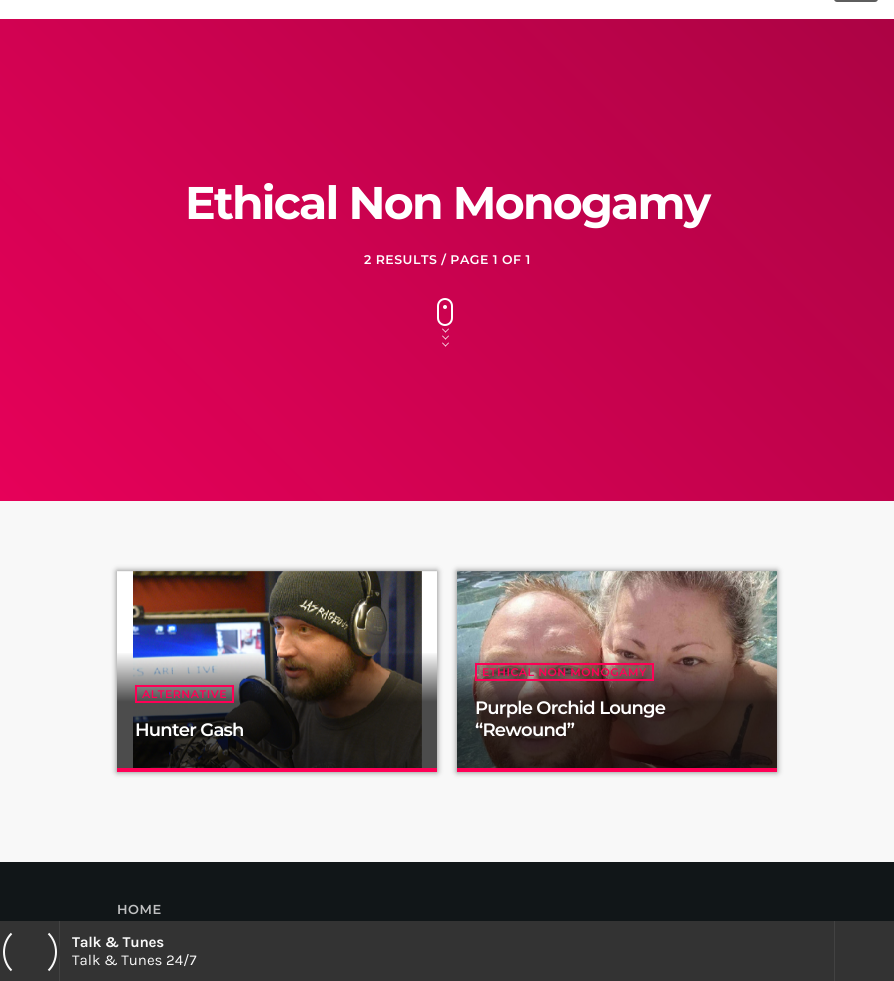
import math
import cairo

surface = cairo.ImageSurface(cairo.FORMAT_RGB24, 894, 981)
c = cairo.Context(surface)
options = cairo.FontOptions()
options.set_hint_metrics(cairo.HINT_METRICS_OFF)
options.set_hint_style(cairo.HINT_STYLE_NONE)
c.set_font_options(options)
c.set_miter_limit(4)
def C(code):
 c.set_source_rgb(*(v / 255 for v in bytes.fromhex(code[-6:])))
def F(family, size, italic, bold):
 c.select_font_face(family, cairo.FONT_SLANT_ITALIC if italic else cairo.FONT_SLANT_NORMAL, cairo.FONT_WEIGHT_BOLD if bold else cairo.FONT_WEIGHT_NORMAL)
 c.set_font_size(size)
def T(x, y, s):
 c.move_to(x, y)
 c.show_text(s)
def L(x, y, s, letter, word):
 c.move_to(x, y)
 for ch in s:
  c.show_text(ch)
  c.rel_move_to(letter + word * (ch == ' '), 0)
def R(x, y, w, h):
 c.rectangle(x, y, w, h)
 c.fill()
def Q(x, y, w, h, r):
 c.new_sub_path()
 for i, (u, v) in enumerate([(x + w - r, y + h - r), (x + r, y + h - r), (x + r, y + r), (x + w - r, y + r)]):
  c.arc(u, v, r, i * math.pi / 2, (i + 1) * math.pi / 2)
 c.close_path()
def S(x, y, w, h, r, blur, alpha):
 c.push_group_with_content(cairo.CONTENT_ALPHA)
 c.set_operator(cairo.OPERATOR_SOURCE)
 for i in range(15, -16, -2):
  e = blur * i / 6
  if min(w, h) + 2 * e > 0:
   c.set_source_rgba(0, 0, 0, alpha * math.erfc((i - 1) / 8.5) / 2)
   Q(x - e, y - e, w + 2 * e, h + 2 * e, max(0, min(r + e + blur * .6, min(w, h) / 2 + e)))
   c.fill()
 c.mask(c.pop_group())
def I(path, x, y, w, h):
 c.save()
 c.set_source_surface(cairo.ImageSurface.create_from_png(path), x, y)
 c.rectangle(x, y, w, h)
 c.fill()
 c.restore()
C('ffffff')
c.paint()
gradient = cairo.LinearGradient(103,604,791,-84)
gradient.add_color_stop_rgba(0,0.902,0.004,0.349,1)
gradient.add_color_stop_rgba(1,0.675,0.012,0.267,1)
c.set_source(gradient)
R(0,19,894,482)
F('Montserrat',45.75,0,1)
C('ffffff')
L(185,219,'Ethical Non Monogamy',-1.8,0)
F('Montserrat SemiBold',12.5,0,0)
L(364,264,'2 RESULTS / PAGE 1 OF 1',.5,0)
Q(438,299,14,26,7)
c.stroke()
c.arc(445,307,2,0,2 * math.pi)
c.fill()
c.new_path()
c.move_to(448.5,328.5)
c.line_to(449,329)
c.line_to(445.5,332.5)
c.line_to(445,332)
c.close_path()
c.fill()
c.new_path()
c.move_to(442.5,328.5)
c.line_to(446,332)
c.line_to(445.5,332.5)
c.line_to(442,329)
c.close_path()
c.move_to(448.5,335.5)
c.line_to(449,336)
c.line_to(445.5,339.5)
c.line_to(445,339)
c.close_path()
c.fill()
c.new_path()
c.move_to(442.5,335.5)
c.line_to(446,339)
c.line_to(445.5,339.5)
c.line_to(442,336)
c.close_path()
c.move_to(448.5,342.5)
c.line_to(449,343)
c.line_to(445.5,346.5)
c.line_to(445,346)
c.close_path()
c.fill()
c.new_path()
c.move_to(442.5,342.5)
c.line_to(446,346)
c.line_to(445.5,346.5)
c.line_to(442,343)
c.close_path()
c.fill()
C('f8f8f8')
R(0,501,894,361)
C('000000')
S(117,571,320,201,0,3,.5)
I('1.png',117,571,320,197)
gradient = cairo.LinearGradient(277,571,277,772)
gradient.add_color_stop_rgba(0,0,0,0,0)
gradient.add_color_stop_rgba(.4,0,0,0,0)
gradient.add_color_stop_rgba(.65,0,0,0,.7)
gradient.add_color_stop_rgba(1,0,0,0,.7)
c.set_source(gradient)
R(117,653,320,115)
c.rectangle(136,686,97,16)
C('ff0056')
c.stroke()
F('Montserrat SemiBold',11,0,0)
L(142,698,'ALTERNATIVE',.5,0)
F('Montserrat SemiBold',18,0,0)
C('ffffff')
L(135,736,'Hunter Gash',-.75,0)
C('ff0056')
R(117,768,320,4)
C('000000')
S(457,571,320,201,0,3,.5)
I('2.png',457,571,320,197)
gradient = cairo.LinearGradient(617,571,617,772)
gradient.add_color_stop_rgba(0,0,0,0,0)
gradient.add_color_stop_rgba(.4,0,0,0,0)
gradient.add_color_stop_rgba(.65,0,0,0,.7)
gradient.add_color_stop_rgba(1,0,0,0,.7)
c.set_source(gradient)
R(457,653,320,115)
c.rectangle(476,664,177,16)
C('ff0056')
c.stroke()
F('Montserrat SemiBold',11,0,0)
L(482,676,'ETHICAL NON MONOGAMY',.5,0)
F('Montserrat SemiBold',18,0,0)
C('ffffff')
L(475,714,'Purple Orchid Lounge',-.75,0)
L(475,736,'“Rewound”',-.75,0)
C('ff0056')
R(457,768,320,4)
C('111618')
R(0,862,894,59)
F('Montserrat SemiBold',13,0,0)
C('bfc0c1')
L(117,914,'HOME',.5,0)
Q(835,-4,42,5,2)
C('5e5e5e')
c.stroke()
C('333333')
R(0,921,894,60)
C('424242')
R(59,921,1,60)
C('333333')
c.arc(30,952,30,0,2 * math.pi)
c.fill()
c.new_path()
c.move_to(48.5,933.5)
c.curve_to(58.5,943.5,58.5,960.5,48.5,970.5)
c.move_to(11.5,970.5)
c.curve_to(1.5,960.5,1.5,943.5,11.5,933.5)
C('f9f9f9')
c.stroke()
F('Karla',15,0,1)
L(72,947,'Talk & Tunes',-.25,0)
F('Karla',15,0,0)
T(72,965,'Talk & Tunes 24/7')
C('424242')
R(834,921,1,60)
surface.write_to_png('o.png')
